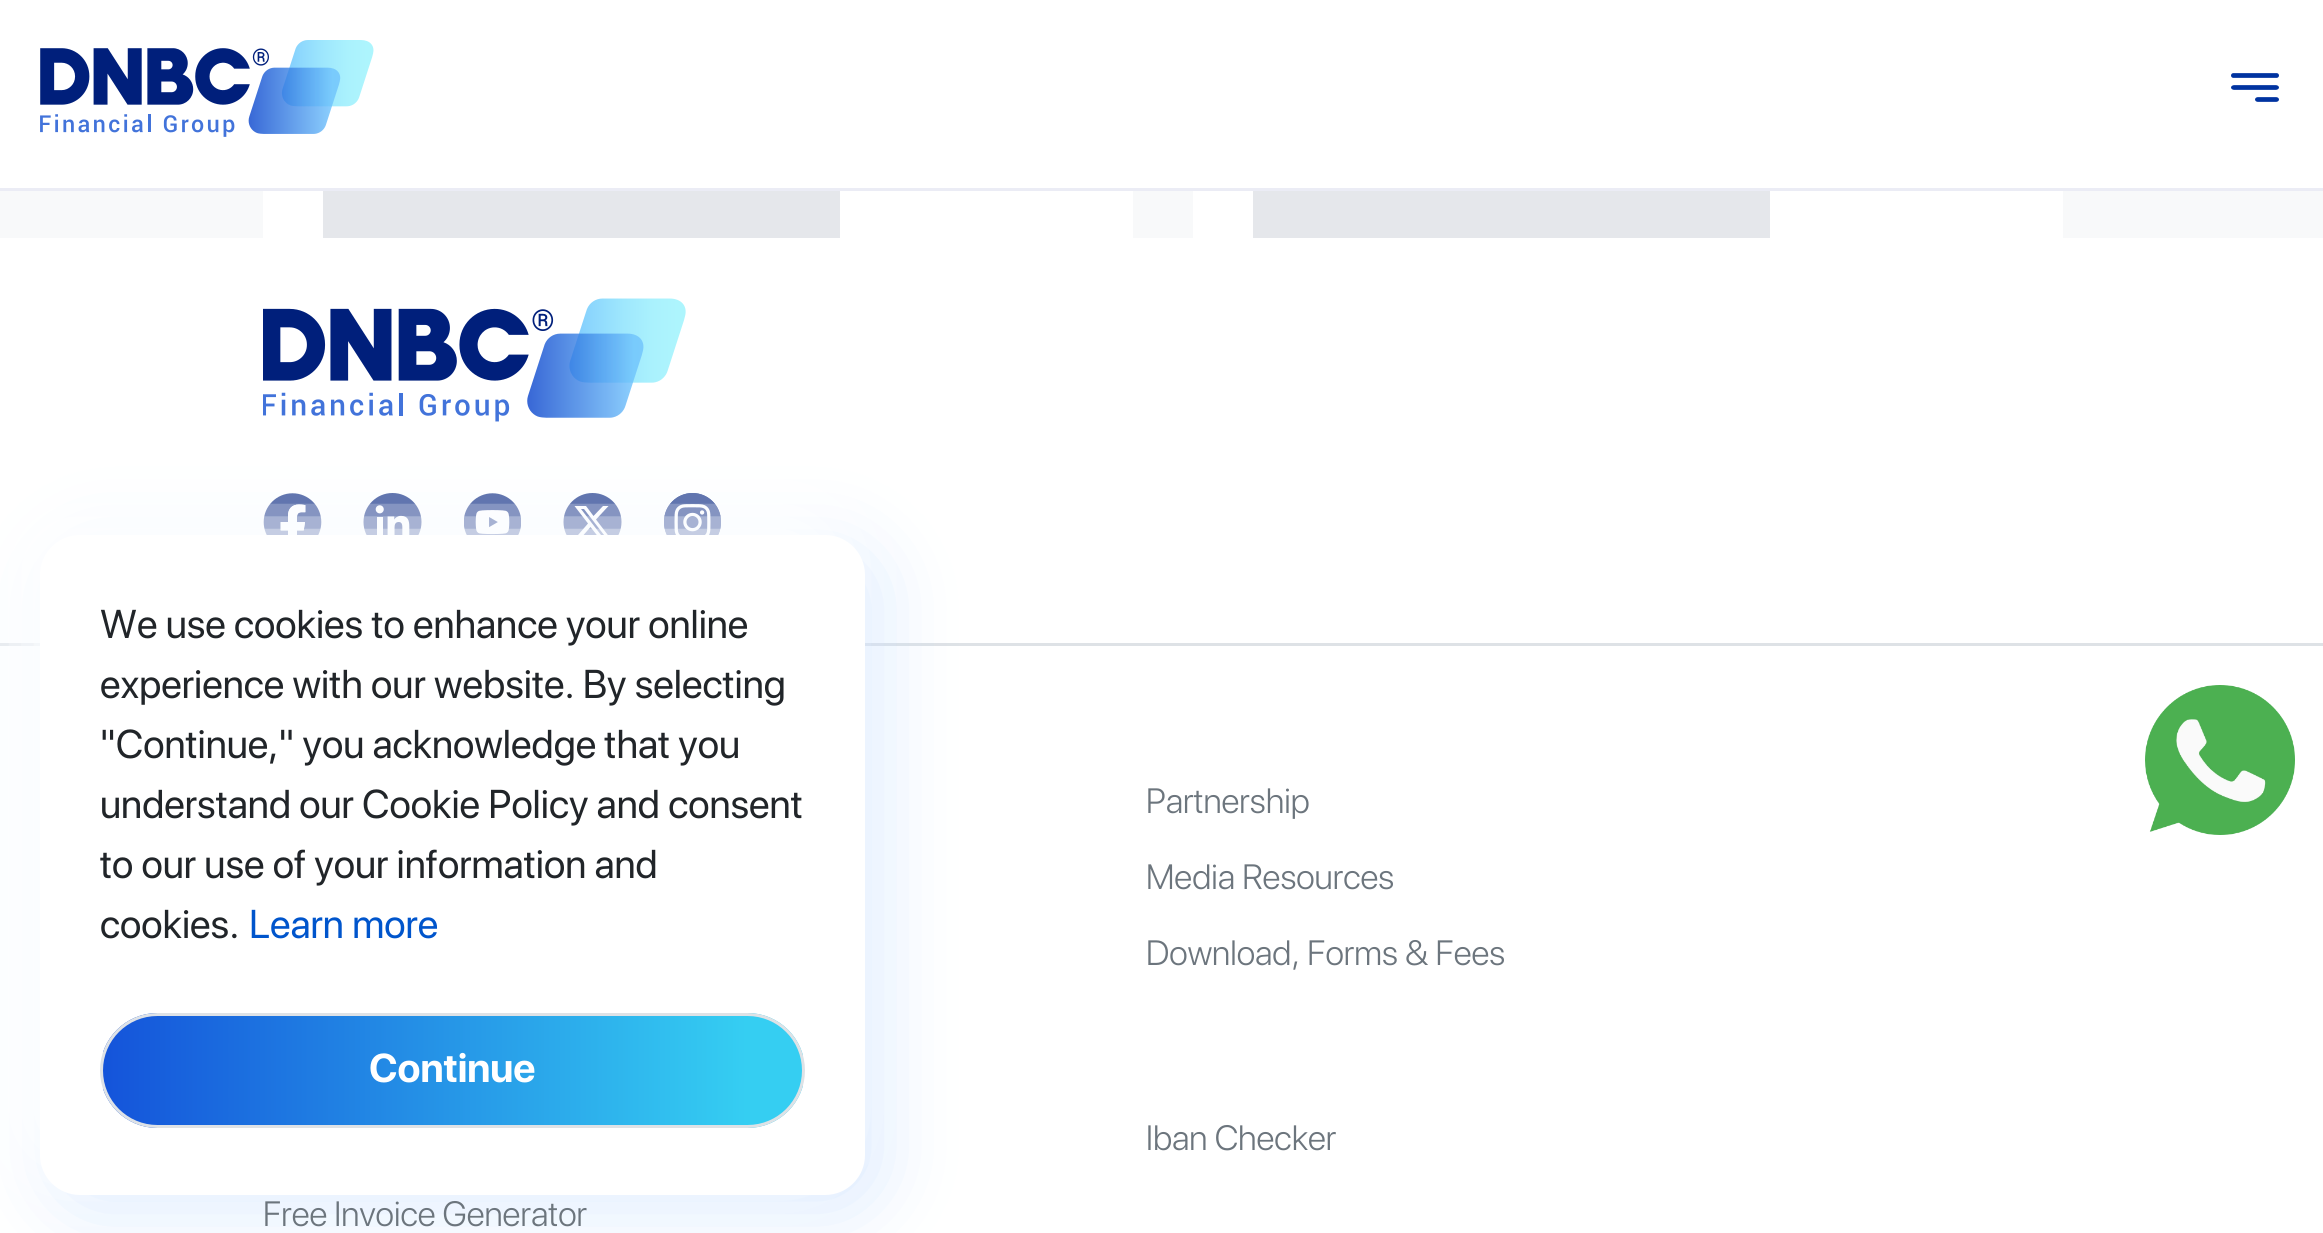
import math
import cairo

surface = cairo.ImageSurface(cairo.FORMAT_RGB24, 2323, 1233)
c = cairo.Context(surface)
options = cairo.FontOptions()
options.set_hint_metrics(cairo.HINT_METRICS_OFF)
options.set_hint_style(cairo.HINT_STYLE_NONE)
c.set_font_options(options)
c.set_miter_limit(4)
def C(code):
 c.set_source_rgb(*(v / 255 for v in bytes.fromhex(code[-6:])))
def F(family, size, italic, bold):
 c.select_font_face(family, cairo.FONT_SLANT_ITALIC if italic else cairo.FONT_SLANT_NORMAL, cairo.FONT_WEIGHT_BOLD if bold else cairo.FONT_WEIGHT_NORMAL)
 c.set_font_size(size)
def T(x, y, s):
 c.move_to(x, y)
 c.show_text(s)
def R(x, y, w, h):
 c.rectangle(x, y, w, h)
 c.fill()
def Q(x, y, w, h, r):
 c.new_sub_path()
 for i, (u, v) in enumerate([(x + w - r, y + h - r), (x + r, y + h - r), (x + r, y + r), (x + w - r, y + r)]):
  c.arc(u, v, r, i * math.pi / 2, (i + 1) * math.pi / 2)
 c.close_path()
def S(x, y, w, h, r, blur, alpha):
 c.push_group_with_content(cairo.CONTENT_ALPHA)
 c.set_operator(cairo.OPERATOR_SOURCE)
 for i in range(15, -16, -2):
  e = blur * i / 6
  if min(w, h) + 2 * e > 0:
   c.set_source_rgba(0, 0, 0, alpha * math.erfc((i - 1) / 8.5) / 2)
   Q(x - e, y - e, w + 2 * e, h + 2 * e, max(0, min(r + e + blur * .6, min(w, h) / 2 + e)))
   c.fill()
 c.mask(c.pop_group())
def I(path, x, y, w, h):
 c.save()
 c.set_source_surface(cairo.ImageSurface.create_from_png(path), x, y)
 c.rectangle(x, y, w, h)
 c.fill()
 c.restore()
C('f8f9fa')
c.paint()
C('ffffff')
R(0,238,2323,995)
I('4.png',263,493,59,42)
I('5.png',363,493,59,42)
I('6.png',464,493,57,42)
C('001f7b')
c.arc(592.5,522,29,0,2 * math.pi)
c.fill()
C('ffffff')
c.new_path()
c.move_to(603,506)
c.line_to(608.5,506)
c.line_to(596,519.5)
c.line_to(610.5,538.5)
c.line_to(599.5,538.5)
c.line_to(590.5,527)
c.line_to(580.5,538.5)
c.line_to(575,538.5)
c.line_to(588,523.5)
c.line_to(574.5,506)
c.line_to(586,506)
c.line_to(593.5,516)
c.close_path()
c.move_to(601,535)
c.line_to(604,535)
c.line_to(584,509)
c.line_to(581,509)
c.close_path()
c.fill()
I('7.png',664,493,57,42)
C('dee2e6')
R(0,643,2323,3)
C('99c5ff')
S(53,548,825,660,40,37.5,.4)
I('3.png',263,298,423,124)
C('ffffff')
S(15,510,825,660,40,37.5,1)
C('ffffff')
Q(40,535,825,660,40)
c.fill()
F('SF Pro Display',40,0,0)
C('212529')
T(100,638,'We use cookies to enhance your online')
T(100,698,'experience with our website. By selecting')
T(100,758,'"Continue," you acknowledge that you')
T(100,818,'understand our Cookie Policy and consent')
T(100,878,'to our use of your information and')
T(100,938,'cookies.')
C('0055cc')
T(249,938,'Learn more')
c.save()
Q(100,1013,705,115,57.5)
c.clip()
gradient = cairo.LinearGradient(99,1070,803,1070)
gradient.add_color_stop_rgba(0,0.078,0.325,0.855,1)
gradient.add_color_stop_rgba(.92,0.208,0.808,0.949,1)
c.set_source(gradient)
R(103,1013,700,115)
c.restore()
Q(101.5,1014.5,702,112,56)
C('dee2e6')
c.set_line_width(3)
c.stroke()
F('SF Pro Display',40,0,1)
C('ffffff')
T(369,1082,'Continue')
R(0,0,2323,188)
C('ebecf5')
R(0,188,2323,3)
I('1.png',40,40,334,97)
I('2.png',2231,73,48,29)
C('ffffff')
R(263,191,870,47)
C('e5e7eb')
R(323,191,517,47)
C('ffffff')
R(1193,191,870,47)
C('e5e7eb')
R(1253,191,517,47)
I('8.png',2145,685,150,150)
F('SF Pro Display Light',35,0,0)
C('6c757d')
T(1146,813,'Partnership')
T(1146,889,'Media Resources')
T(1146,965,'Download, Forms & Fees')
T(1146,1150,'Iban Checker')
T(263,1226,'Free Invoice Generator')
surface.write_to_png('o.png')
